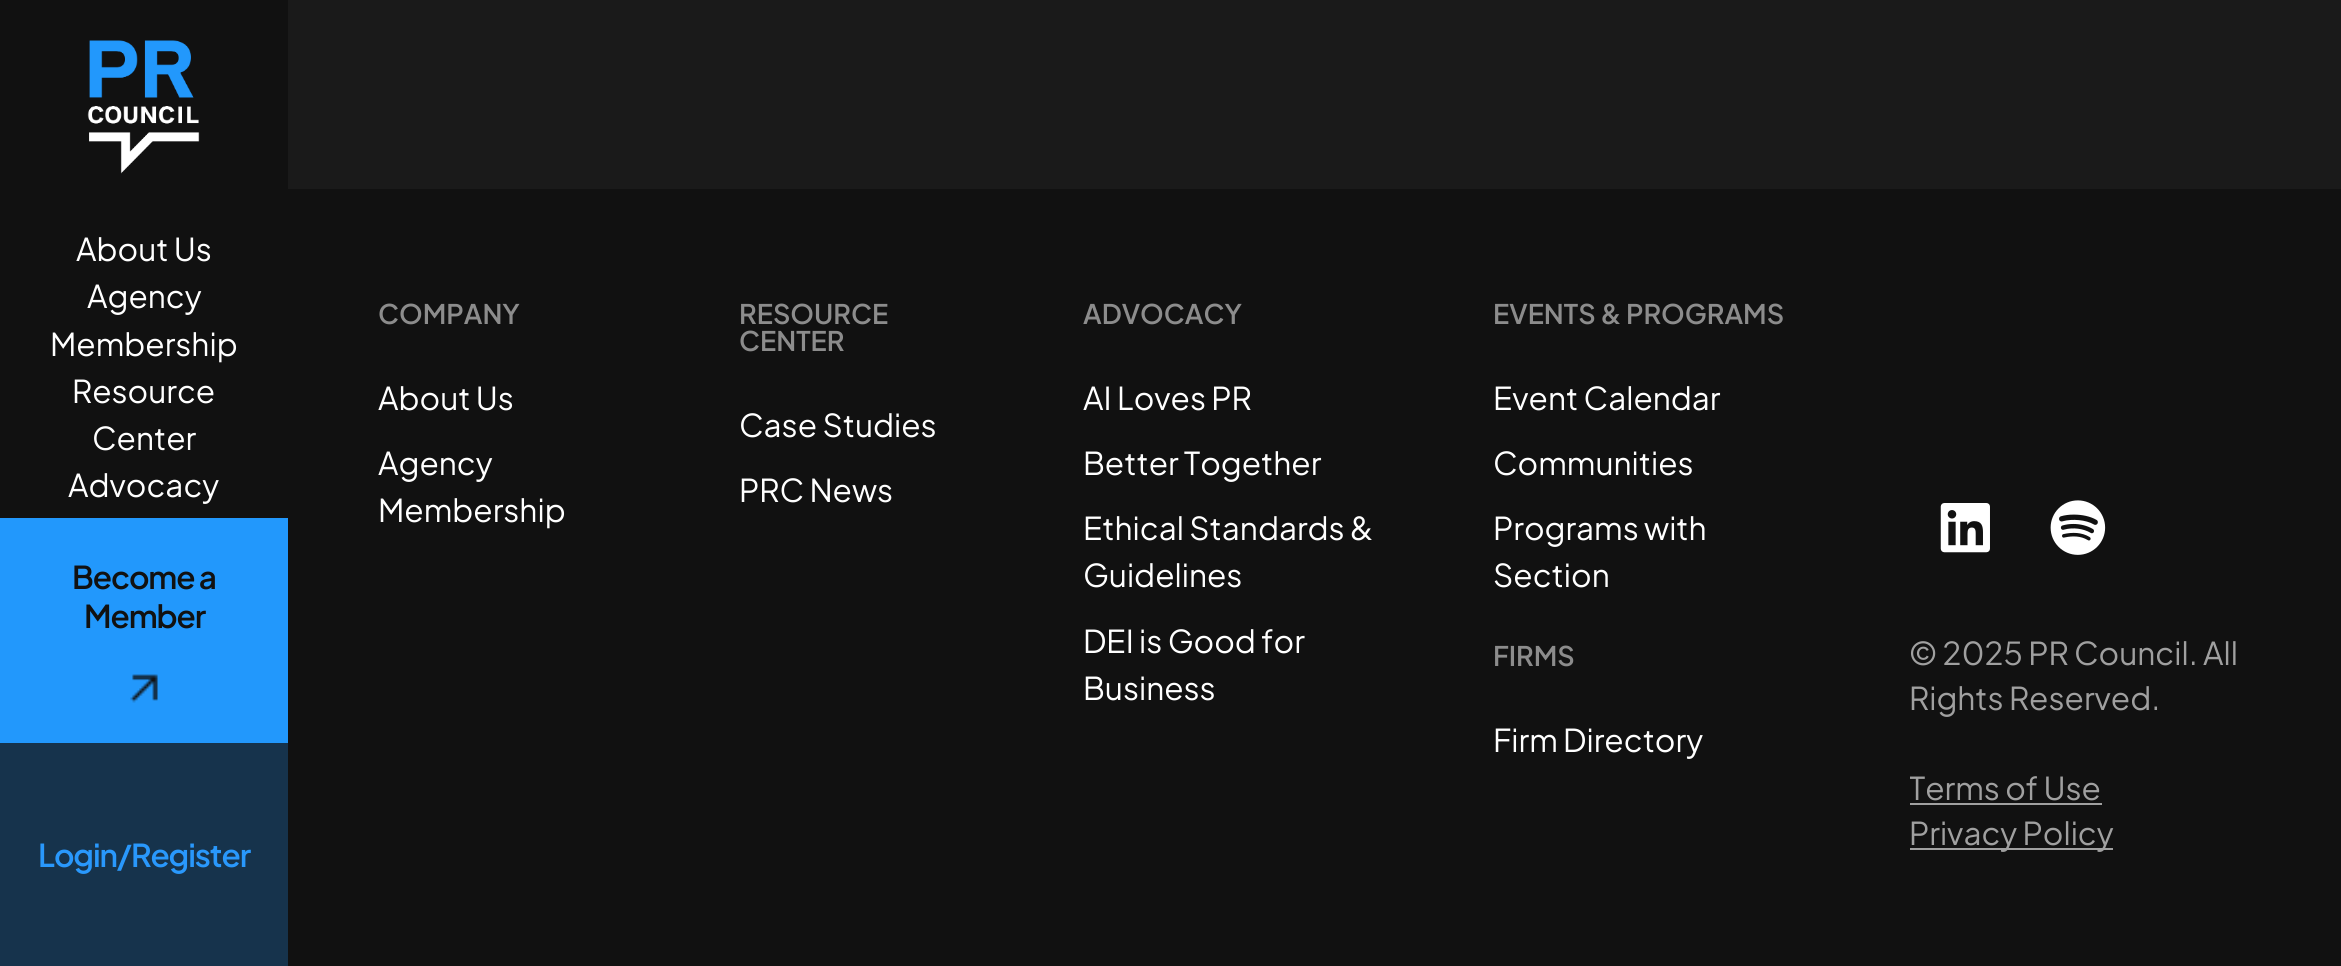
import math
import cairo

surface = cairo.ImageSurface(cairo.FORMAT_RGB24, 2341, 966)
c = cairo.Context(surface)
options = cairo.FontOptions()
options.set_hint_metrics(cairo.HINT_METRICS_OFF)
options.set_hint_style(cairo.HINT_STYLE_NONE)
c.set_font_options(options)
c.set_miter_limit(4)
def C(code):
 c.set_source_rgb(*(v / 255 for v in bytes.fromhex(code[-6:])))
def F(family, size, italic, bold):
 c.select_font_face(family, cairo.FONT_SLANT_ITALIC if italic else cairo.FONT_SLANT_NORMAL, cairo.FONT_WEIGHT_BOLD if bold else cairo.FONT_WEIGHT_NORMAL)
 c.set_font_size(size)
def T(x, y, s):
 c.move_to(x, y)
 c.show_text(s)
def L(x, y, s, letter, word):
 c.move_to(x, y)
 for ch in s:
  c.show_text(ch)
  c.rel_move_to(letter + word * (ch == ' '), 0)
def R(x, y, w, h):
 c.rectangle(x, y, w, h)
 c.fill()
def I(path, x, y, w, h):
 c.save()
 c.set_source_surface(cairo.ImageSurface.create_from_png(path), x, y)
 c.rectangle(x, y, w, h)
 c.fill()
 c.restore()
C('1a1a1a')
c.paint()
C('111111')
R(0,0,288,518)
I('1.png',87,40,113,134)
F('Plus Jakarta Sans',31.5,0,0)
C('ffffff')
T(76,261,'About Us')
T(87,308,'Agency')
T(50,356,'Membership')
T(72,403,'Resource')
T(92,450,'Center')
T(68,497,'Advocacy')
C('2298fc')
R(0,518,288,225)
F('Plus Jakarta Sans SemiBold',31.5,0,0)
C('111111')
L(72,589,'Become a',-1.1,0)
L(84,628,'Member',-1.1,0)
I('2.png',130,674,28,29)
C('16334c')
R(0,743,288,223)
C('2998fc')
L(38,867,'Login/Register',-1.1,0)
C('111111')
R(288,189,2053,777)
F('Plus Jakarta Sans SemiBold',27,0,0)
C('8c8c8c')
T(378,324,'COMPANY')
F('Plus Jakarta Sans',31.5,0,0)
C('ffffff')
T(378,410,'About Us')
T(378,475,'Agency')
T(378,522,'Membership')
F('Plus Jakarta Sans SemiBold',27,0,0)
C('8c8c8c')
T(739,324,'RESOURCE')
T(739,351,'CENTER')
F('Plus Jakarta Sans',31.5,0,0)
C('ffffff')
T(739,437,'Case Studies')
T(739,502,'PRC News')
F('Plus Jakarta Sans SemiBold',27,0,0)
C('8c8c8c')
T(1083,324,'ADVOCACY')
F('Plus Jakarta Sans',31.5,0,0)
C('ffffff')
T(1083,410,'AI Loves PR')
T(1083,475,'Better Together')
T(1083,540,'Ethical Standards &')
T(1083,587,'Guidelines')
T(1083,653,'DEI is Good for')
T(1083,700,'Business')
F('Plus Jakarta Sans SemiBold',27,0,0)
C('8c8c8c')
T(1493,324,'EVENTS & PROGRAMS')
F('Plus Jakarta Sans',31.5,0,0)
C('ffffff')
T(1493,410,'Event Calendar')
T(1493,475,'Communities')
T(1493,540,'Programs with')
T(1493,587,'Section')
F('Plus Jakarta Sans SemiBold',27,0,0)
C('8c8c8c')
T(1493,666,'FIRMS')
F('Plus Jakarta Sans',31.5,0,0)
C('ffffff')
T(1493,752,'Firm Directory')
I('3.png',1940,503,50,50)
I('4.png',2050,500,56,55)
C('a0a0a0')
T(1909,665,'© 2025 PR Council. All')
T(1909,710,'Rights Reserved.')
c.save()
c.rectangle(1910,765,342,90)
c.clip()
T(1909,800,'Terms of Use')
c.restore()
R(1910,803,192,2)
R(1910,848,203,2)
T(1909,845,'Privacy Policy')
surface.write_to_png('o.png')
